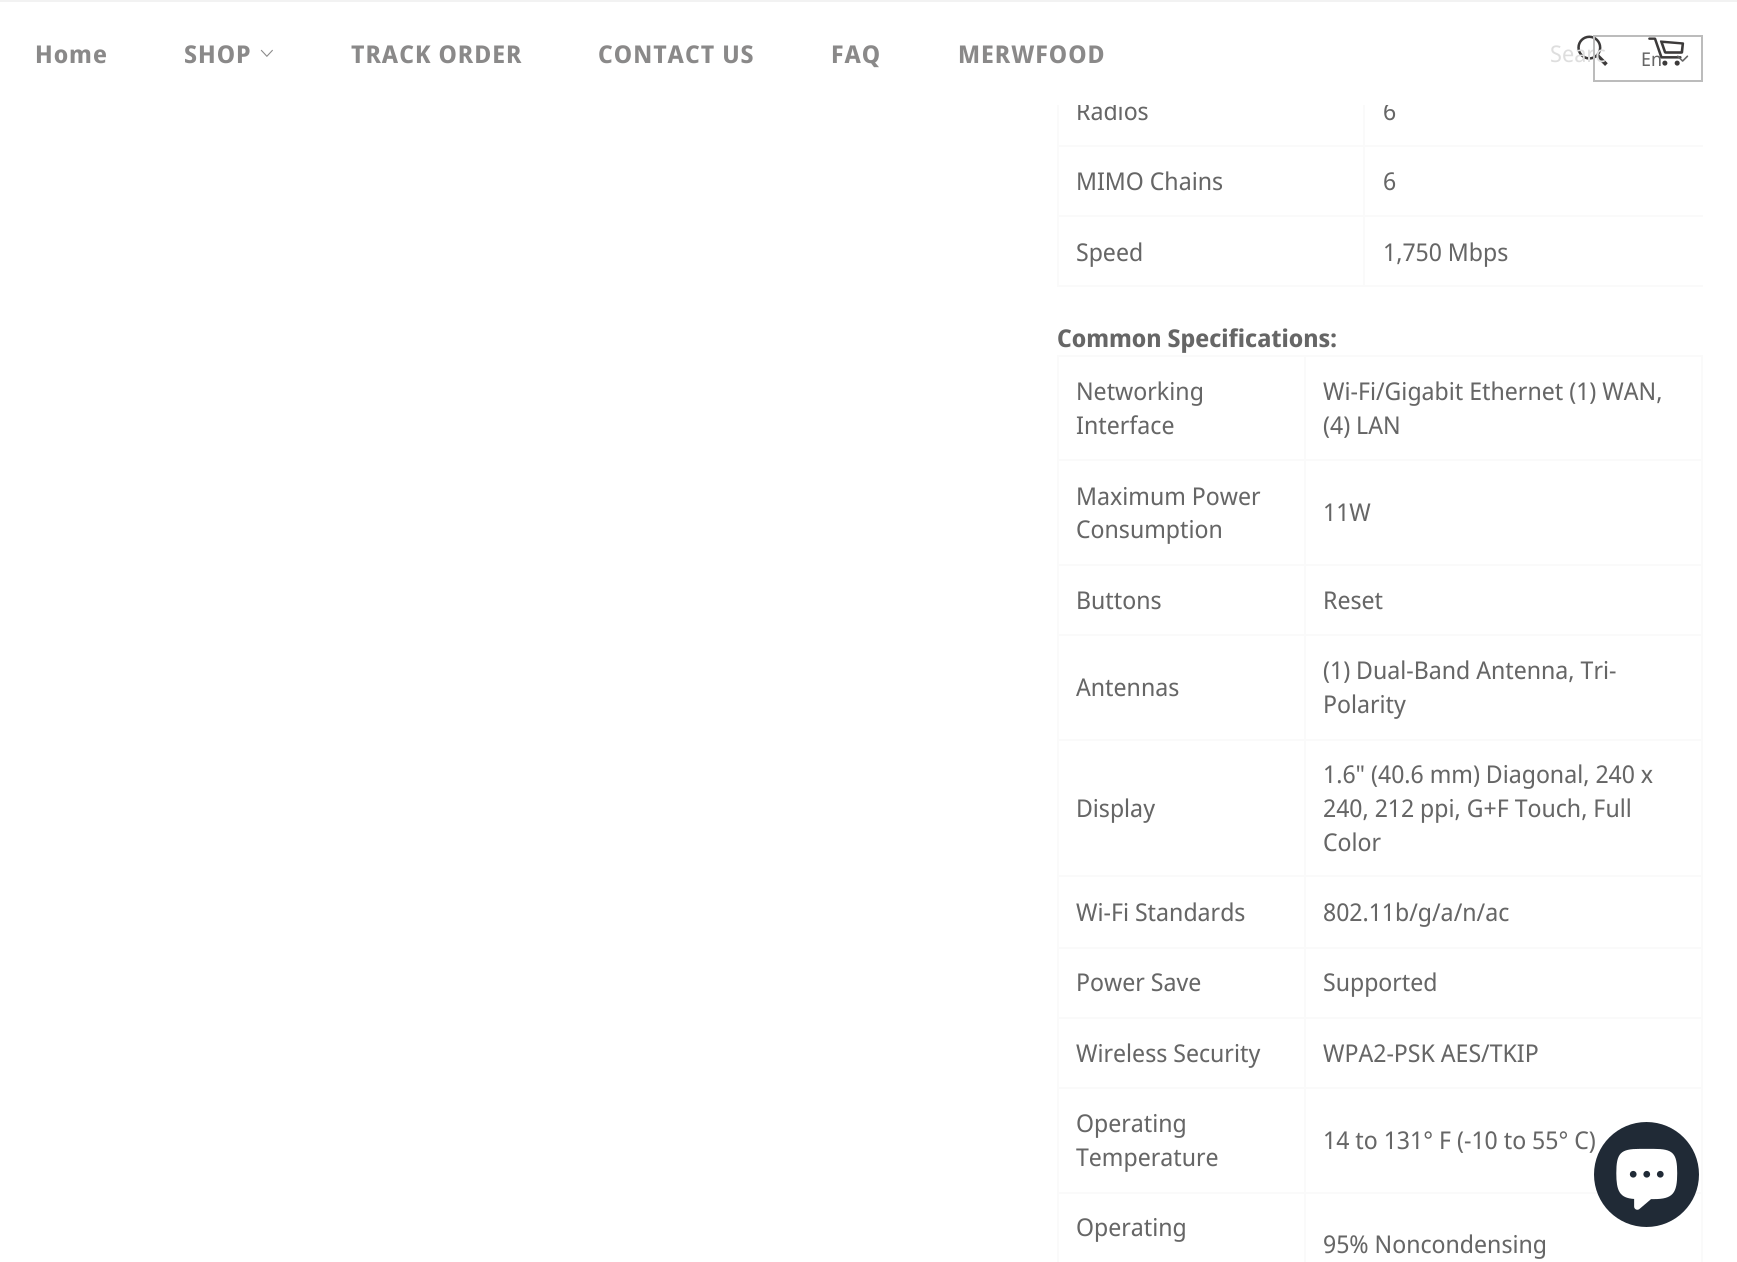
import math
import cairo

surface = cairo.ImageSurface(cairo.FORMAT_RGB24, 1737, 1262)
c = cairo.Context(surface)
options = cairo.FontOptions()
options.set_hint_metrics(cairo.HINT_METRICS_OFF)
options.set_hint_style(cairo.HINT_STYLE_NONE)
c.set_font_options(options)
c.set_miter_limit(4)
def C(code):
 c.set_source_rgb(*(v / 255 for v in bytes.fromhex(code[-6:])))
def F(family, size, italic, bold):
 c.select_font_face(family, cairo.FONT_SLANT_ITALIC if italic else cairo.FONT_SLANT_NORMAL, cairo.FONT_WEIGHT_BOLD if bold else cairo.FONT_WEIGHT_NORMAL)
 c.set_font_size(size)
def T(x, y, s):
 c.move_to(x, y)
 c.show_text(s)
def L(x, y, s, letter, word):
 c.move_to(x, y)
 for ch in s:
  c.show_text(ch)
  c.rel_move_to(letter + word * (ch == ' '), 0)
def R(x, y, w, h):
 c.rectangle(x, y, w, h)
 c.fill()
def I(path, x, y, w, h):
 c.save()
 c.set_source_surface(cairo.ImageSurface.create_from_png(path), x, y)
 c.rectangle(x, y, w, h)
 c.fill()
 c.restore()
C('ffffff')
c.paint()
F('Noto Sans Display',24.5,0,0)
C('666666')
T(1076,120,'Radios')
T(1383,120,'6')
C('ffffff')
R(1078,101,316,4)
C('f2f2f2')
R(0,0,1737,2)
F('Noto Sans Display',24.5,0,1)
C('8a8989')
L(35,63,'Home',1,0)
L(184,63,'SHOP',1,0)
I('1.png',260,49,13,8)
L(351,63,'TRACK ORDER',1,0)
L(598,63,'CONTACT US',1,0)
L(831,63,'FAQ',1,0)
L(958,63,'MERWFOOD',1,0)
I('2.png',1577,35,31,31)
F('Noto Sans Display',23,0,0)
C('dedede')
T(1550,62,'Searc')
I('3.png',1648,37,37,29)
c.rectangle(1594,36,108,45)
C('bcbcbc')
c.stroke()
F('Noto Sans Display',19,0,0)
C('666666')
T(1641,66,'En')
I('4.png',1677,55,12,7)
C('fafafa')
R(1363,145,340,2)
R(1363,215,340,2)
R(1363,285,340,2)
R(1363,215,2,72)
R(1057,215,308,2)
R(1363,145,2,72)
R(1057,145,308,2)
R(1363,105,2,42)
R(1057,285,308,2)
R(1057,215,2,72)
R(1057,105,2,112)
F('Noto Sans Display',24.5,0,0)
C('666666')
T(1076,190,'MIMO Chains')
T(1383,190,'6')
T(1076,261,'Speed')
T(1383,261,'1,750 Mbps')
F('Noto Sans Display',24.5,0,1)
T(1057,347,'Common Specifications:')
C('fafafa')
R(1304,355,399,2)
R(1304,459,399,2)
R(1304,564,399,2)
R(1304,634,399,2)
R(1304,739,399,2)
R(1304,875,399,2)
R(1304,947,399,2)
R(1304,1017,399,2)
R(1304,1087,399,2)
R(1304,1192,399,2)
R(1304,1192,2,70)
R(1057,1192,249,2)
R(1304,1087,2,107)
R(1057,1087,249,2)
R(1304,1017,2,72)
R(1057,1017,249,2)
R(1304,947,2,72)
R(1057,947,249,2)
R(1304,875,2,74)
R(1057,875,249,2)
R(1304,739,2,138)
R(1057,739,249,2)
R(1304,634,2,106)
R(1057,634,249,2)
R(1304,564,2,71)
R(1057,564,249,2)
R(1304,459,2,106)
R(1057,459,249,2)
R(1304,355,2,105)
R(1057,355,249,2)
R(1057,1192,2,70)
R(1057,1087,2,107)
R(1057,1017,2,72)
R(1057,947,2,72)
R(1057,875,2,74)
R(1057,739,2,138)
R(1057,634,2,106)
R(1057,564,2,71)
R(1057,459,2,106)
R(1057,355,2,105)
F('Noto Sans Display',24.5,0,0)
C('666666')
T(1076,400,'Networking')
T(1076,434,'Interface')
C('fafafa')
R(1701,1192,2,70)
R(1701,1087,2,107)
R(1701,1017,2,72)
R(1701,947,2,72)
R(1701,875,2,74)
R(1701,739,2,138)
R(1701,634,2,106)
R(1701,564,2,71)
R(1701,459,2,106)
R(1701,355,2,105)
C('666666')
T(1323,400,'Wi-Fi/Gigabit Ethernet (1) WAN,')
T(1323,434,'(4) LAN')
T(1076,505,'Maximum Power')
T(1076,538,'Consumption')
T(1323,521,'11W')
T(1076,609,'Buttons')
T(1323,609,'Reset')
T(1076,696,'Antennas')
T(1323,679,'(1) Dual-Band Antenna, Tri-')
T(1323,713,'Polarity')
T(1076,817,'Display')
T(1323,783,'1.6" (40.6 mm) Diagonal, 240 x')
T(1323,817,'240, 212 ppi, G+F Touch, Full')
T(1323,851,'Color')
T(1076,921,'Wi-Fi Standards')
T(1323,921,'802.11b/g/a/n/ac')
T(1076,991,'Power Save')
T(1323,991,'Supported')
T(1076,1062,'Wireless Security')
T(1323,1062,'WPA2-PSK AES/TKIP')
T(1076,1132,'Operating')
T(1076,1166,'Temperature')
T(1323,1149,'14 to 131° F (-10 to 55° C)')
T(1076,1236,'Operating')
T(1323,1253,'95% Noncondensing')
C('202a36')
c.new_path()
c.arc(1646.5,1174.5,52.5,0,2 * math.pi)
c.fill()
I('5.png',1616,1148,62,62)
surface.write_to_png('o.png')
